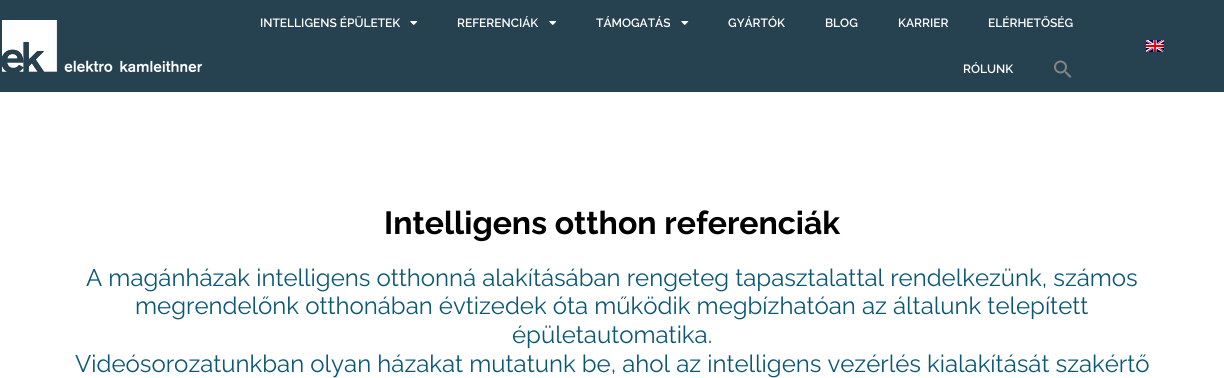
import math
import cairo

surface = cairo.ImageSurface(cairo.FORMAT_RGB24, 1224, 378)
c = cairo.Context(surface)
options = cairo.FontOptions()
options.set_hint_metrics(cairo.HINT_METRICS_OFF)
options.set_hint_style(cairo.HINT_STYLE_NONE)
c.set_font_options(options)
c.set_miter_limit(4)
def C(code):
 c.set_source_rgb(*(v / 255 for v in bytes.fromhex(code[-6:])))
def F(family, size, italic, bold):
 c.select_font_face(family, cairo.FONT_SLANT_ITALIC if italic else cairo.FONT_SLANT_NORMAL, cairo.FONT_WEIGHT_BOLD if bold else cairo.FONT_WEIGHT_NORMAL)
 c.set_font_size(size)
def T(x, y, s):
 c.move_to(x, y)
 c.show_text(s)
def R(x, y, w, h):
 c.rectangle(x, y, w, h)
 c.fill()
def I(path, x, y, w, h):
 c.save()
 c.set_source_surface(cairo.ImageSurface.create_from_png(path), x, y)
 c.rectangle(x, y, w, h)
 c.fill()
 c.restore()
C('ffffff')
c.paint()
C('26414f')
R(0,0,1224,92)
I('1.png',2,20,200,52)
F('Raleway SemiBold',12,0,0)
C('ffffff')
T(260,27,'INTELLIGENS ÉPÜLETEK')
I('2.png',410,21,8,4)
T(457,27,'REFERENCIÁK')
I('2.png',549,21,8,4)
T(596,27,'TÁMOGATÁS')
I('2.png',681,21,8,4)
T(728,27,'GYÁRTÓK')
T(825,27,'BLOG')
T(898,27,'KARRIER')
T(988,27,'ELÉRHETŐSÉG')
T(963,73,'RÓLUNK')
I('3.png',1054,60,18,18)
I('4.png',1146,40,18,12)
F('Raleway',32,0,1)
C('000000')
T(384,234,'Intelligens otthon referenciák')
F('Raleway',24,0,0)
C('0b5875')
T(86,286,'A magánházak intelligens otthonná alakításában rengeteg tapasztalattal rendelkezünk, számos')
T(135,314,'megrendelőnk otthonában évtizedek óta működik megbízhatóan az általunk telepített')
T(512,343,'épületautomatika.')
T(75,372,'Videósorozatunkban olyan házakat mutatunk be, ahol az intelligens vezérlés kialakítását szakértő')
surface.write_to_png('o.png')
